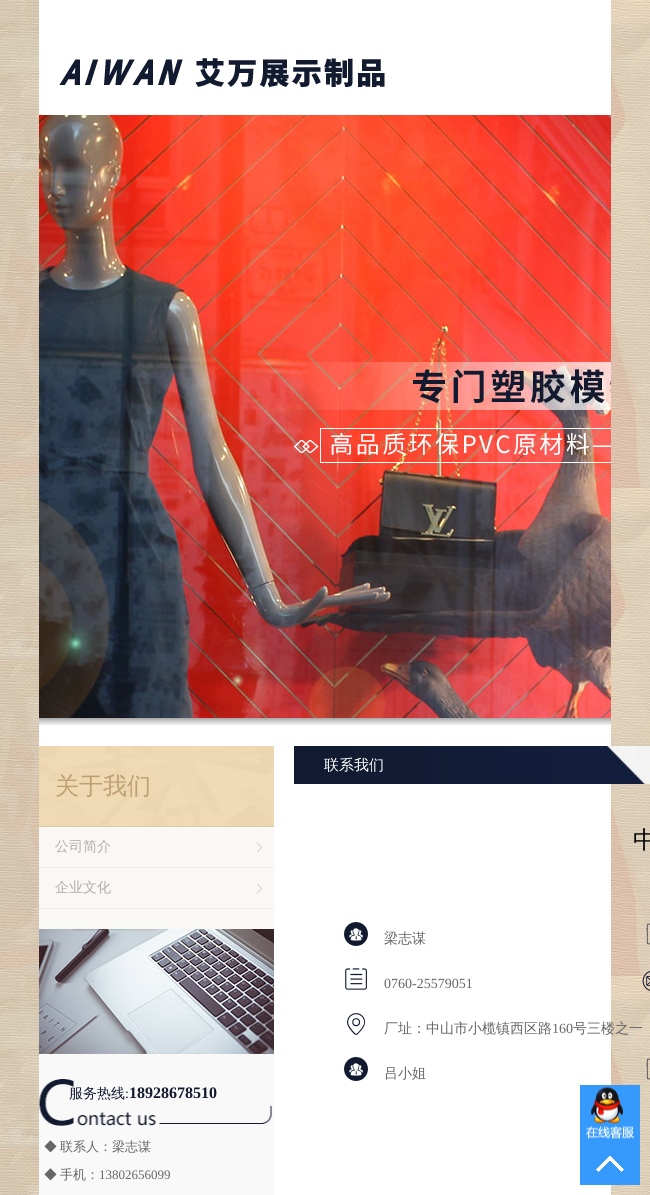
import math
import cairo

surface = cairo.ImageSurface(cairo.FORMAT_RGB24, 650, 1195)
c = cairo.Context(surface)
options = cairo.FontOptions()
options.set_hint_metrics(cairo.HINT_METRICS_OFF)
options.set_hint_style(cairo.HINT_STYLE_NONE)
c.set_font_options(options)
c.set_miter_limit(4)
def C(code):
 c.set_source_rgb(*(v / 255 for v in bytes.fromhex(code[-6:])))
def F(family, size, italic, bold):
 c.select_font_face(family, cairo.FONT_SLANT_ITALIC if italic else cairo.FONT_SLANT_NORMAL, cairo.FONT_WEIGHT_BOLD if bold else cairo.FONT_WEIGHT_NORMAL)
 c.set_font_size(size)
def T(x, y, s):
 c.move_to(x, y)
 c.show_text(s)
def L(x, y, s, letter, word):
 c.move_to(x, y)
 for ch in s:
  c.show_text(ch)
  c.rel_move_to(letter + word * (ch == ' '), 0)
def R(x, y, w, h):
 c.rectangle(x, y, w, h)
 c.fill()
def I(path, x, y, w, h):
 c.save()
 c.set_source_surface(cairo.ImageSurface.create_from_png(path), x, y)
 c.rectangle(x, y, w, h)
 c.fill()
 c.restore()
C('ffffff')
c.paint()
I('1.png',0,0,650,1195)
C('ffffff')
R(39,0,572,1195)
I('2.png',59,58,326,30)
I('3.png',39,115,572,603)
gradient = cairo.LinearGradient(325,718,325,726)
gradient.add_color_stop_rgba(0,0.659,0.659,0.659,1)
gradient.add_color_stop_rgba(1,1,1,1,1)
c.set_source(gradient)
R(39,718,572,8)
C('faf8f5')
R(39,827,235,102)
I('4.png',39,746,235,80)
C('dfcba6')
R(39,826,235,1)
F('WenQuanYi Zen Hei Medium',24,0,0)
C('bf9f72')
T(55,794,'关于我们')
I('5.png',257,842,5,11)
c.new_path()
c.move_to(39,867.5)
c.line_to(274,867.5)
C('dedede')
c.set_line_width(1)
c.set_dash([1,1])
c.stroke()
F('WenQuanYi Zen Hei Medium',14,0,0)
C('b0afad')
T(55,851,'公司简介')
I('5.png',257,883,5,11)
c.new_path()
c.move_to(39,908.5)
c.line_to(274,908.5)
C('dedede')
c.stroke()
C('b0afad')
T(55,892,'企业文化')
I('6.png',39,929,235,125)
C('f9f9f9')
R(39,1054,235,141)
I('7.png',39,1074,233,52)
C('121a30')
T(69,1098,'服务热线')
F('Liberation Serif',14,0,0)
T(125,1098,':')
F('Liberation Serif',16,0,1)
T(129,1098,'18928678510')
F('WenQuanYi Zen Hei Medium',13,0,0)
C('666666')
L(44,1151,'◆ 联系人：梁志谋',0,-1)
L(44,1179,'◆ 手机：',0,-1)
F('Liberation Serif',13,0,0)
T(99,1179,'13802656099')
I('8.png',294,746,356,38)
F('WenQuanYi Zen Hei Medium',15,0,0)
C('ffffff')
T(324,770,'联系我们')
F('WenQuanYi Zen Hei Medium',24,0,0)
C('000000')
T(633,848,'中')
I('9.png',344,922,24,24)
F('WenQuanYi Zen Hei Medium',14,0,0)
C('666666')
T(384,943,'梁志谋')
I('10.png',646,923,4,22)
I('11.png',345,968,22,22)
F('Liberation Serif',14,0,0)
T(384,988,'0760-25579051')
I('12.png',642,971,8,20)
I('13.png',347,1013,19,22)
F('WenQuanYi Zen Hei Medium',14,0,0)
T(384,1033,'厂址：中山市小榄镇西区路')
F('Liberation Serif',14,0,0)
T(552,1033,'160')
F('WenQuanYi Zen Hei Medium',14,0,0)
T(573,1033,'号三楼之一')
I('9.png',344,1057,24,24)
T(384,1078,'吕小姐')
I('14.png',646,1058,4,22)
C('369afc')
R(580,1085,60,100)
I('15.png',586,1087,48,52)
I('16.png',596,1156,28,16)
surface.write_to_png('o.png')
